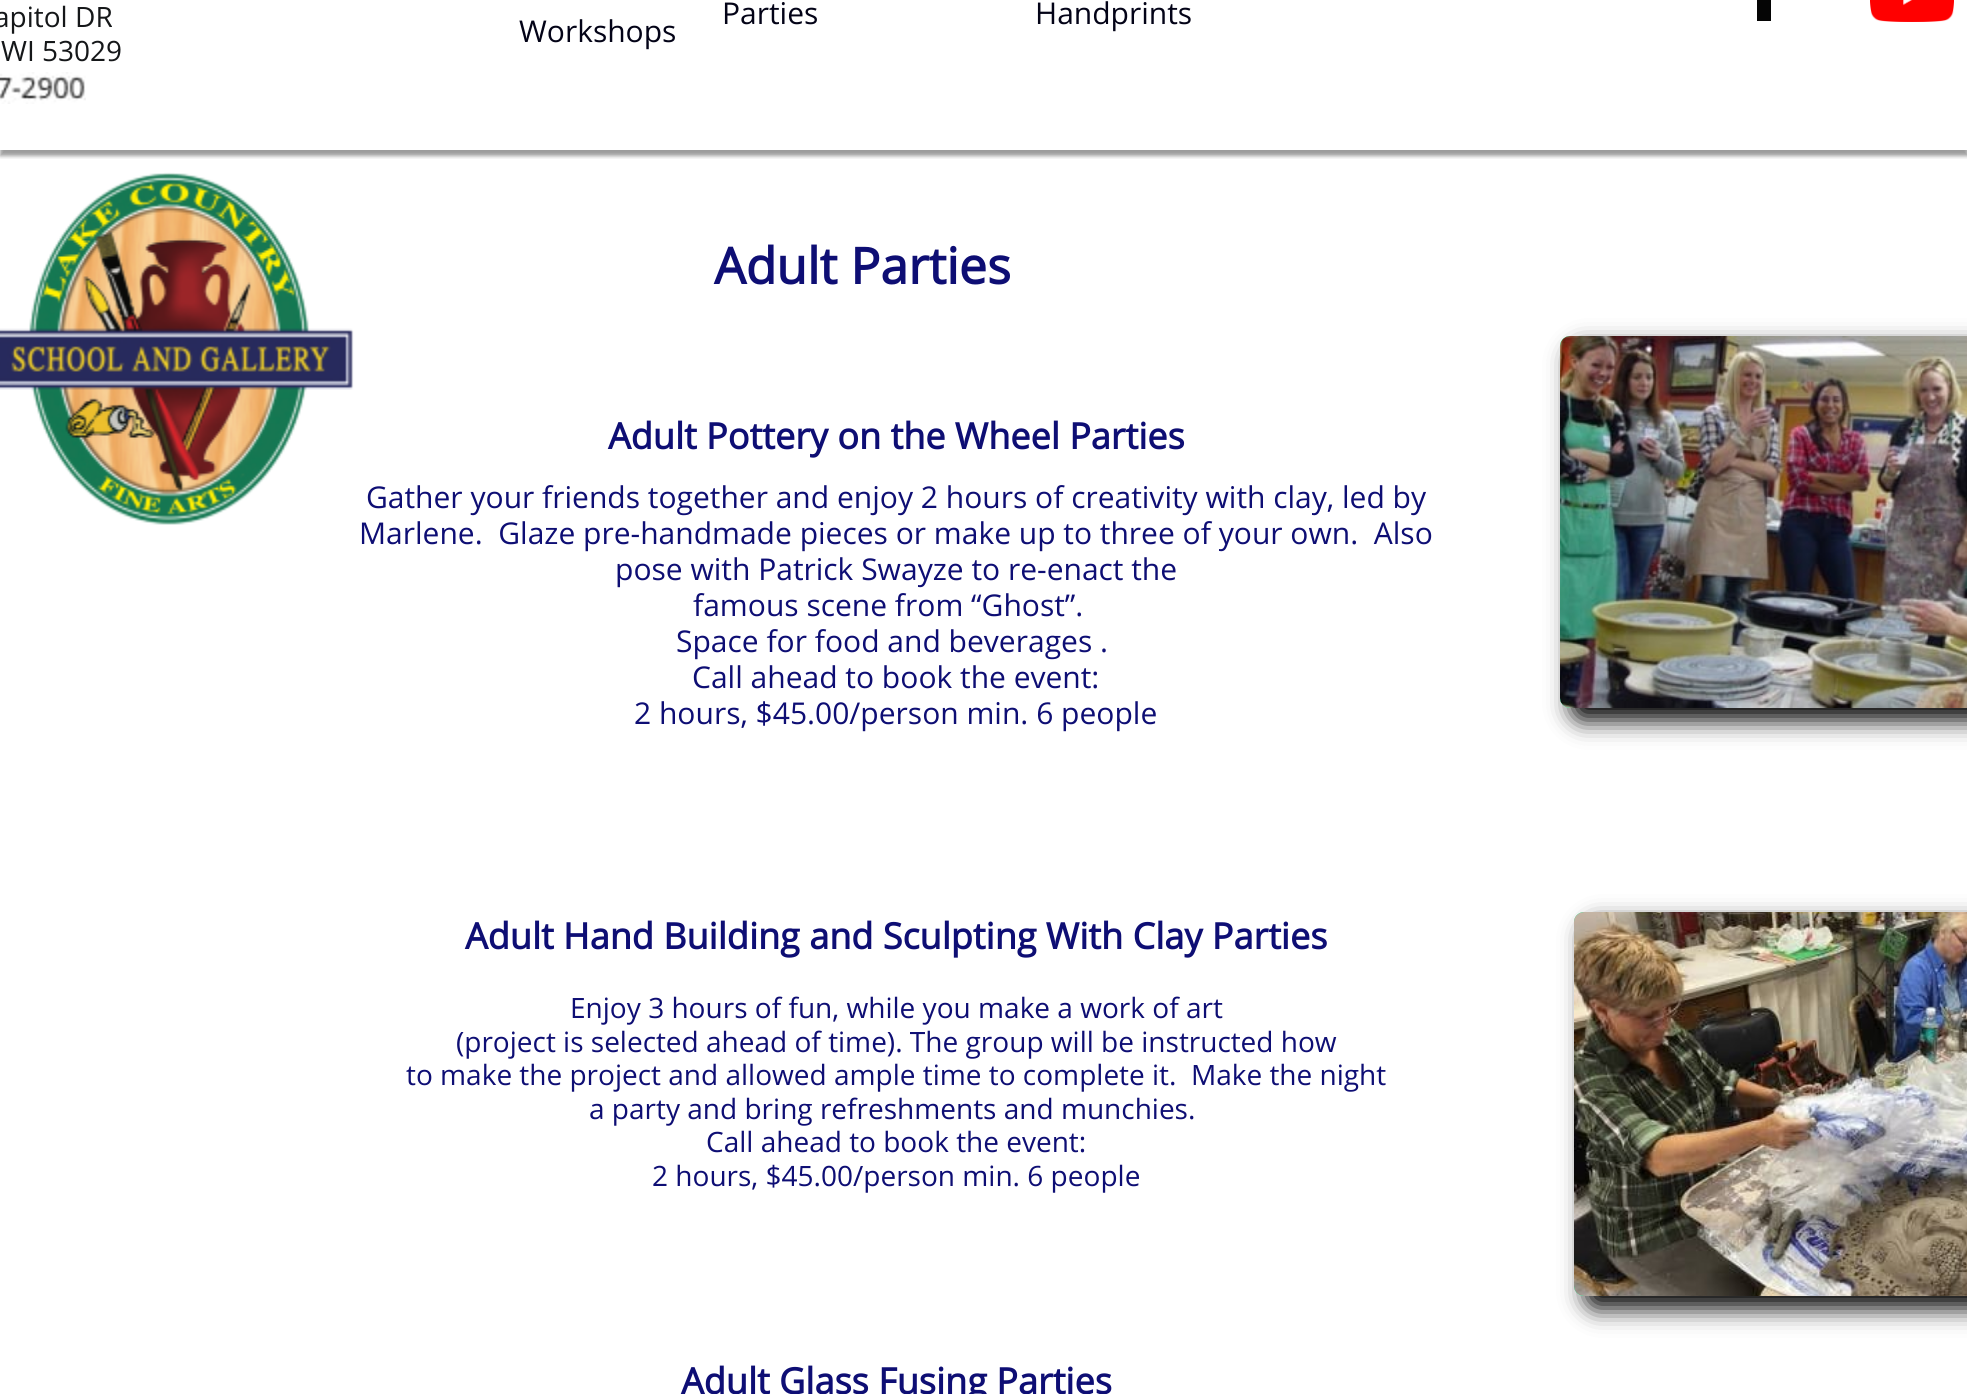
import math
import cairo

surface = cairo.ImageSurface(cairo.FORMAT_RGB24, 1967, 1394)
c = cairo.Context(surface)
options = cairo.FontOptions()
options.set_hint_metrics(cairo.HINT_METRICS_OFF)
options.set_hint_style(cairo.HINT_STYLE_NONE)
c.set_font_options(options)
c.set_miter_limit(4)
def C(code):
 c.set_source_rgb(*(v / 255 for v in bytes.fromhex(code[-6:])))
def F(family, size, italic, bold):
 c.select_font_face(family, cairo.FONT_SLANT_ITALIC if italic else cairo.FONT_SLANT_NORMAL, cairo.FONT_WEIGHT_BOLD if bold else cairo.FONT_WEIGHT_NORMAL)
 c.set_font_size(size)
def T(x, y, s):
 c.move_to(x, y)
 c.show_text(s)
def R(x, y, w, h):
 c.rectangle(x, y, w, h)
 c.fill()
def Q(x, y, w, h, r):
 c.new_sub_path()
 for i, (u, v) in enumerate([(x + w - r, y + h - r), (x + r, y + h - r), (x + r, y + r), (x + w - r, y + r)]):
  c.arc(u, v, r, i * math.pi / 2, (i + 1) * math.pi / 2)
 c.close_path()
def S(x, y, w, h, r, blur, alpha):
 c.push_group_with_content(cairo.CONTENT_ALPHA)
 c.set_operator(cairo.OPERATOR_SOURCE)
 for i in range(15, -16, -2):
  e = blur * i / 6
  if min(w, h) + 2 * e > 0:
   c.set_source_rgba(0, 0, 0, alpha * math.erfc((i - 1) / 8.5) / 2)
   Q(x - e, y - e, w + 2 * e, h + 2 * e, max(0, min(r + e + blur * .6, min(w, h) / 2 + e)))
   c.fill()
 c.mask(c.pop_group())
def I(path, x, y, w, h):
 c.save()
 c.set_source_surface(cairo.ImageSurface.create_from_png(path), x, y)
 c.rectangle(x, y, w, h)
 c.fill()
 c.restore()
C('ffffff')
c.paint()
c.save()
c.rectangle(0,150,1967,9)
c.clip()
C('000000')
S(0,-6,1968,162,0,2,.39)
c.restore()
F('Open Sans',28,0,0)
C('151719')
T(-6,27,'apitol DR')
T(1,61,'WI 53029')
F('Open Sans',30,0,0)
C('030317')
T(722,24,'Parties')
T(1035,24,'Handprints')
T(519,42,'Workshops')
C('050505')
R(1757,0,14,21)
I('1.png',1870,0,84,22)
I('2.png',0,72,86,32)
I('3.png',0,172,354,353)
F('Open Sans',50,0,1)
C('0e0e74')
T(714,284,'Adult Parties')
F('Open Sans',36,0,1)
T(608,449,'Adult Pottery on the Wheel Parties')
F('Open Sans',30,0,0)
T(366,508,'Gather your friends together and enjoy 2 hours of creativity with clay, led by')
T(359,544,'Marlene.  Glaze pre-handmade pieces or make up to three of your own.  Also')
T(615,580,'pose with Patrick Swayze to re-enact the')
T(693,616,'famous scene from “Ghost”.')
T(676,652,'Space for food and beverages .')
T(692,688,'Call ahead to book the event:')
T(634,724,'2 hours, $45.00/person min. 6 people')
C('2eea95')
c.new_path()
c.move_to(1570,336)
c.line_to(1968,336)
c.line_to(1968,708)
c.line_to(1570,708)
c.curve_to(1564.5,708,1560,703.5,1560,698)
c.line_to(1560,346)
c.curve_to(1560,340.5,1564.5,336,1570,336)
c.close_path()
c.fill()
I('4.png',1560,336,407,372)
c.save()
c.set_fill_rule(cairo.FILL_RULE_EVEN_ODD)
c.new_path()
c.move_to(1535,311)
c.line_to(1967,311)
c.line_to(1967,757)
c.line_to(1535,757)
c.close_path()
c.move_to(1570,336)
c.line_to(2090,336)
c.curve_to(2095.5,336,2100,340.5,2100,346)
c.line_to(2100,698)
c.curve_to(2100,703.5,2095.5,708,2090,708)
c.line_to(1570,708)
c.curve_to(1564.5,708,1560,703.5,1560,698)
c.line_to(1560,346)
c.curve_to(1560,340.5,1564.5,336,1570,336)
c.close_path()
c.clip()
C('000000')
S(1572,348,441,372,10,12,1)
c.restore()
F('Open Sans',36,0,1)
C('0e0e74')
T(465,949,'Adult Hand Building and Sculpting With Clay Parties')
F('Open Sans',28,0,0)
T(570,1018,'Enjoy 3 hours of fun, while you make a work of art')
T(456,1052,'(project is selected ahead of time). The group will be instructed how')
T(406,1085,'to make the project and allowed ample time to complete it.  Make the night')
T(589,1119,'a party and bring refreshments and munchies.')
T(706,1152,'Call ahead to book the event:')
T(652,1186,'2 hours, $45.00/person min. 6 people')
C('2eea95')
c.new_path()
c.move_to(1584,912)
c.line_to(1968,912)
c.line_to(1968,1296)
c.line_to(1584,1296)
c.curve_to(1578.5,1296,1574,1291.5,1574,1286)
c.line_to(1574,922)
c.curve_to(1574,916.5,1578.5,912,1584,912)
c.close_path()
c.fill()
I('5.png',1574,912,393,384)
c.save()
c.set_fill_rule(cairo.FILL_RULE_EVEN_ODD)
c.new_path()
c.move_to(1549,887)
c.line_to(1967,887)
c.line_to(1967,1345)
c.line_to(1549,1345)
c.close_path()
c.move_to(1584,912)
c.line_to(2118,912)
c.curve_to(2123.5,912,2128,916.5,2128,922)
c.line_to(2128,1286)
c.curve_to(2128,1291.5,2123.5,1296,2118,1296)
c.line_to(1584,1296)
c.curve_to(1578.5,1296,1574,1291.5,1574,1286)
c.line_to(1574,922)
c.curve_to(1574,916.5,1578.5,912,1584,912)
c.close_path()
c.clip()
C('000000')
S(1586,924,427,384,10,12,1)
c.restore()
F('Open Sans',36,0,1)
C('0e0e74')
T(681,1394,'Adult Glass Fusing Parties')
surface.write_to_png('o.png')
